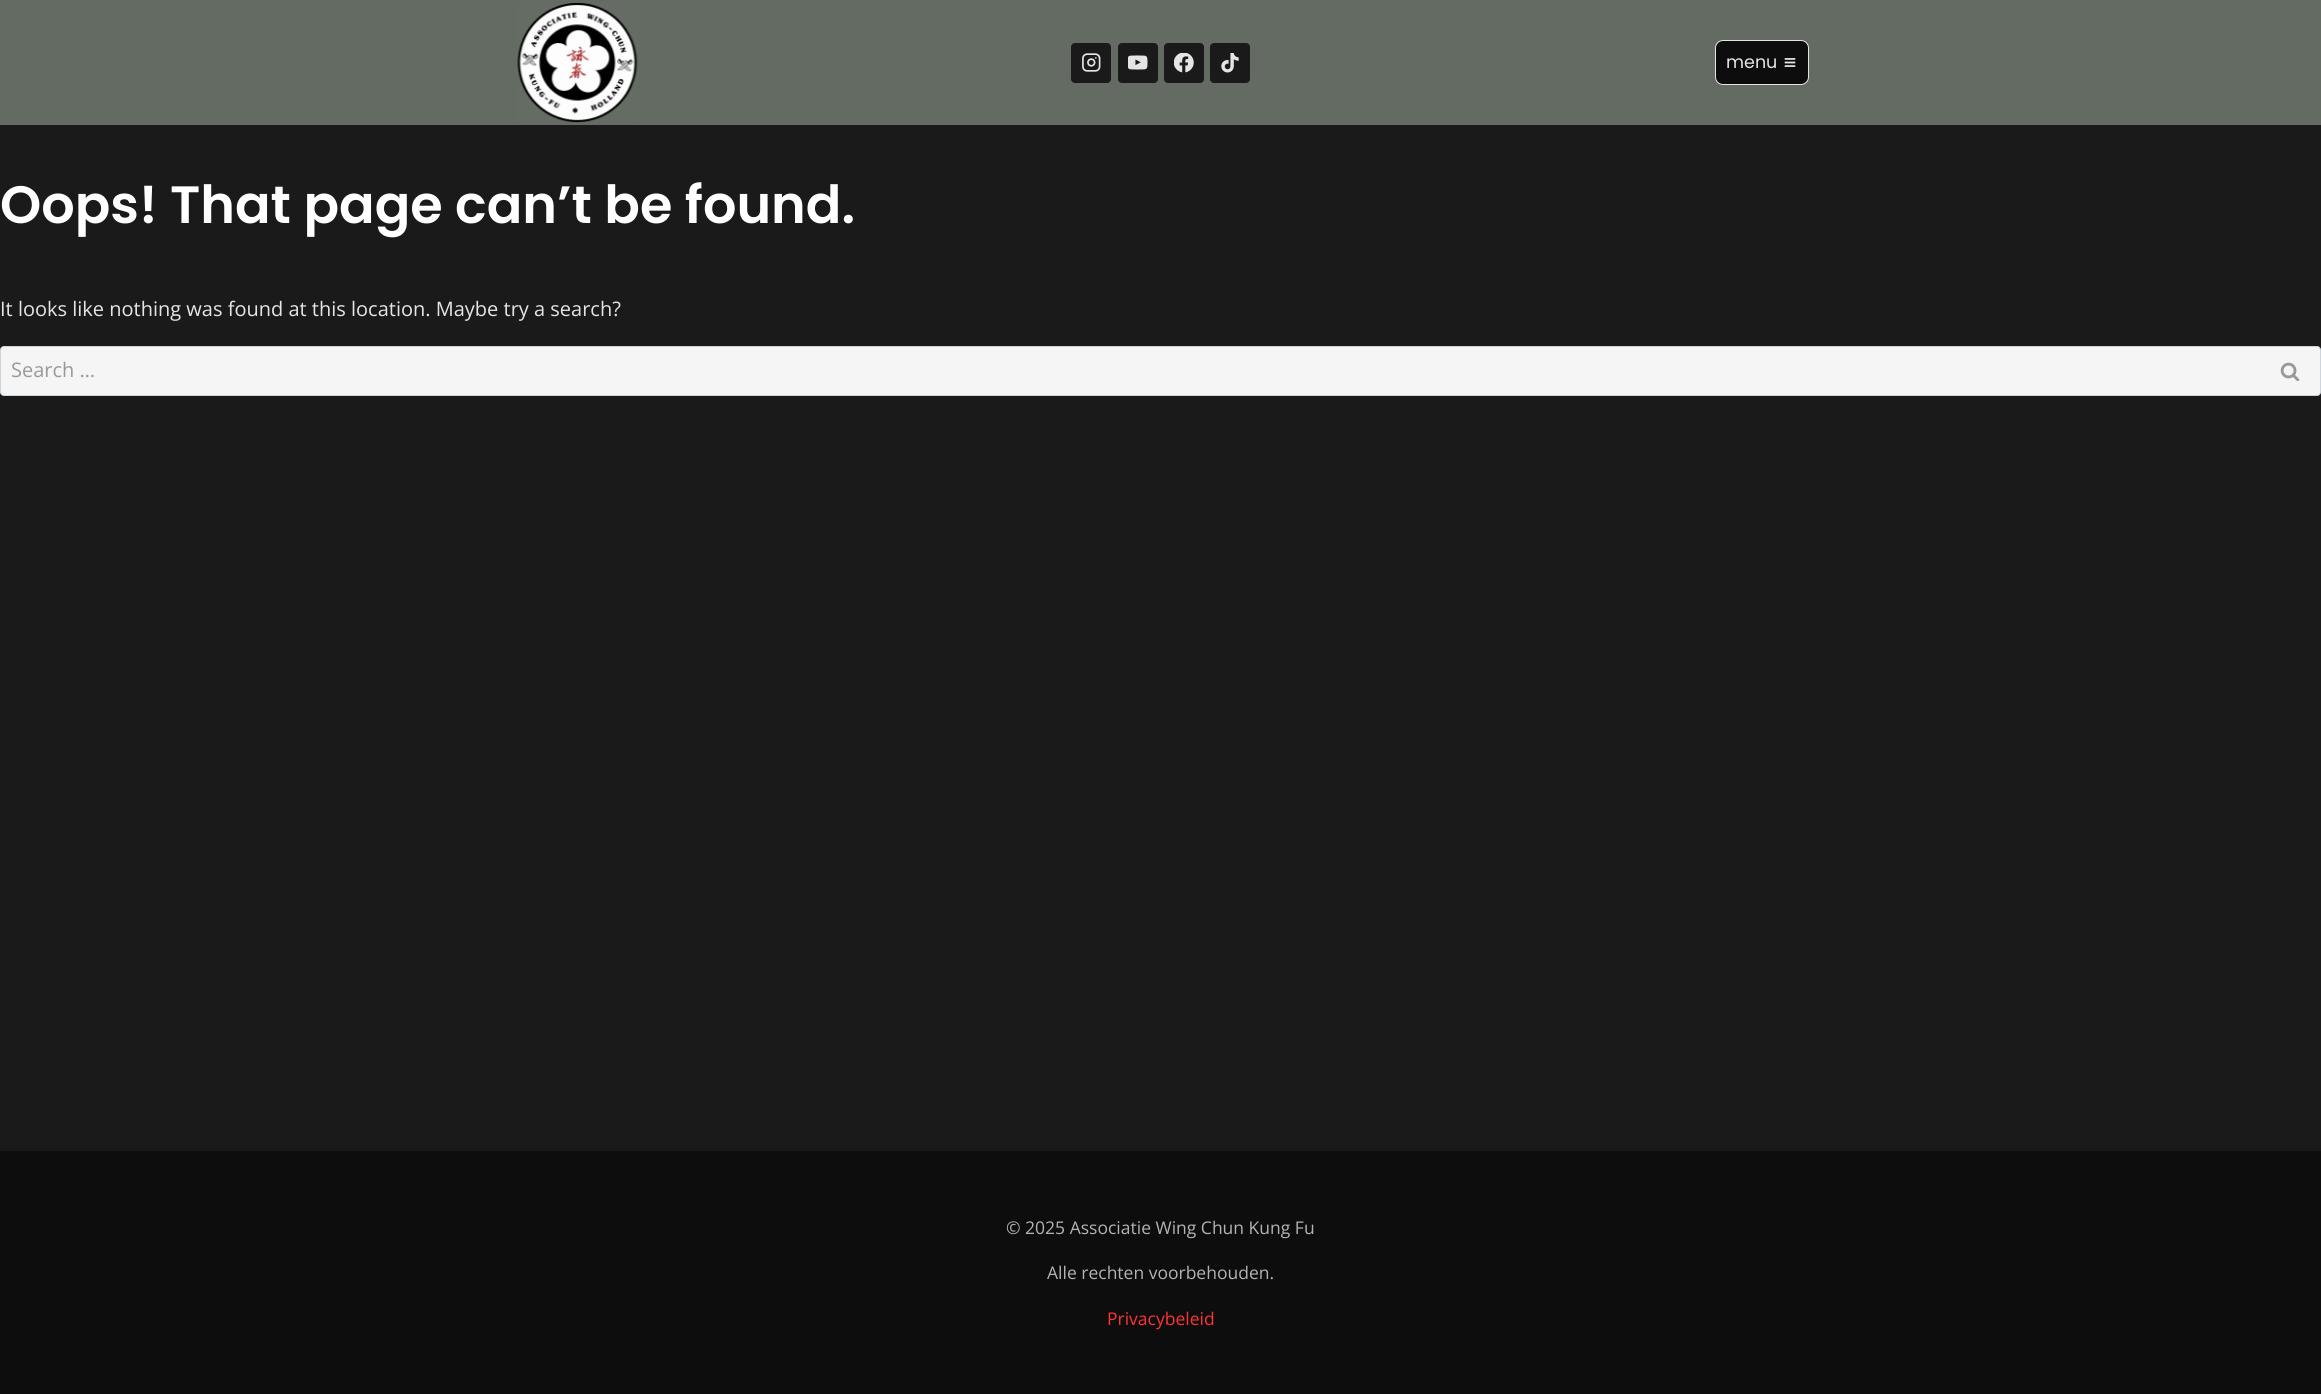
import math
import cairo

surface = cairo.ImageSurface(cairo.FORMAT_RGB24, 2321, 1394)
c = cairo.Context(surface)
options = cairo.FontOptions()
options.set_hint_metrics(cairo.HINT_METRICS_OFF)
options.set_hint_style(cairo.HINT_STYLE_NONE)
c.set_font_options(options)
c.set_miter_limit(4)
def C(code):
 c.set_source_rgb(*(v / 255 for v in bytes.fromhex(code[-6:])))
def F(family, size, italic, bold):
 c.select_font_face(family, cairo.FONT_SLANT_ITALIC if italic else cairo.FONT_SLANT_NORMAL, cairo.FONT_WEIGHT_BOLD if bold else cairo.FONT_WEIGHT_NORMAL)
 c.set_font_size(size)
def T(x, y, s):
 c.move_to(x, y)
 c.show_text(s)
def R(x, y, w, h):
 c.rectangle(x, y, w, h)
 c.fill()
def Q(x, y, w, h, r):
 c.new_sub_path()
 for i, (u, v) in enumerate([(x + w - r, y + h - r), (x + r, y + h - r), (x + r, y + r), (x + w - r, y + r)]):
  c.arc(u, v, r, i * math.pi / 2, (i + 1) * math.pi / 2)
 c.close_path()
def I(path, x, y, w, h):
 c.save()
 c.set_source_surface(cairo.ImageSurface.create_from_png(path), x, y)
 c.rectangle(x, y, w, h)
 c.fill()
 c.restore()
C('1a1a1a')
c.paint()
C('646b63')
R(0,0,2321,125)
I('1.png',517,2,121,121)
C('1a1a1a')
Q(1071,43,40,40,4)
c.fill()
I('2.png',1082,53,19,19)
Q(1118,43,40,40,4)
c.fill()
I('3.png',1128,55,20,15)
Q(1164,43,40,40,4)
c.fill()
I('4.png',1174,53,20,20)
Q(1210,43,40,40,4)
c.fill()
I('5.png',1221,53,18,20)
C('0d0d0d')
Q(1715.5,40.5,93,44,7.5)
c.fill_preserve()
C('e5e5e5')
c.set_line_width(1)
c.stroke()
F('Poppins',17.5,0,0)
T(1726,68,'menu')
I('6.png',1784,58,12,9)
F('Poppins SemiBold',52.5,0,0)
C('ffffff')
T(0,223,'Oops! That page can’t be found.')
F('Open Sans',20,0,0)
C('e5e5e5')
T(0,316,'It looks like nothing was found at this location. Maybe try a search?')
C('f5f5f5')
Q(.5,346.5,2320,49,3.5)
c.fill_preserve()
C('cbd5e0')
c.stroke()
C('999999')
T(11,377,'Search …')
I('7.png',2280,362,20,19)
C('0d0d0d')
R(0,1151,2321,243)
F('Open Sans',17.5,0,0)
C('b3b3b3')
T(1006,1234,'© 2025 Associatie Wing Chun Kung Fu')
T(1047,1279,'Alle rechten voorbehouden.')
C('ff3333')
T(1107,1325,'Privacybeleid')
surface.write_to_png('o.png')
